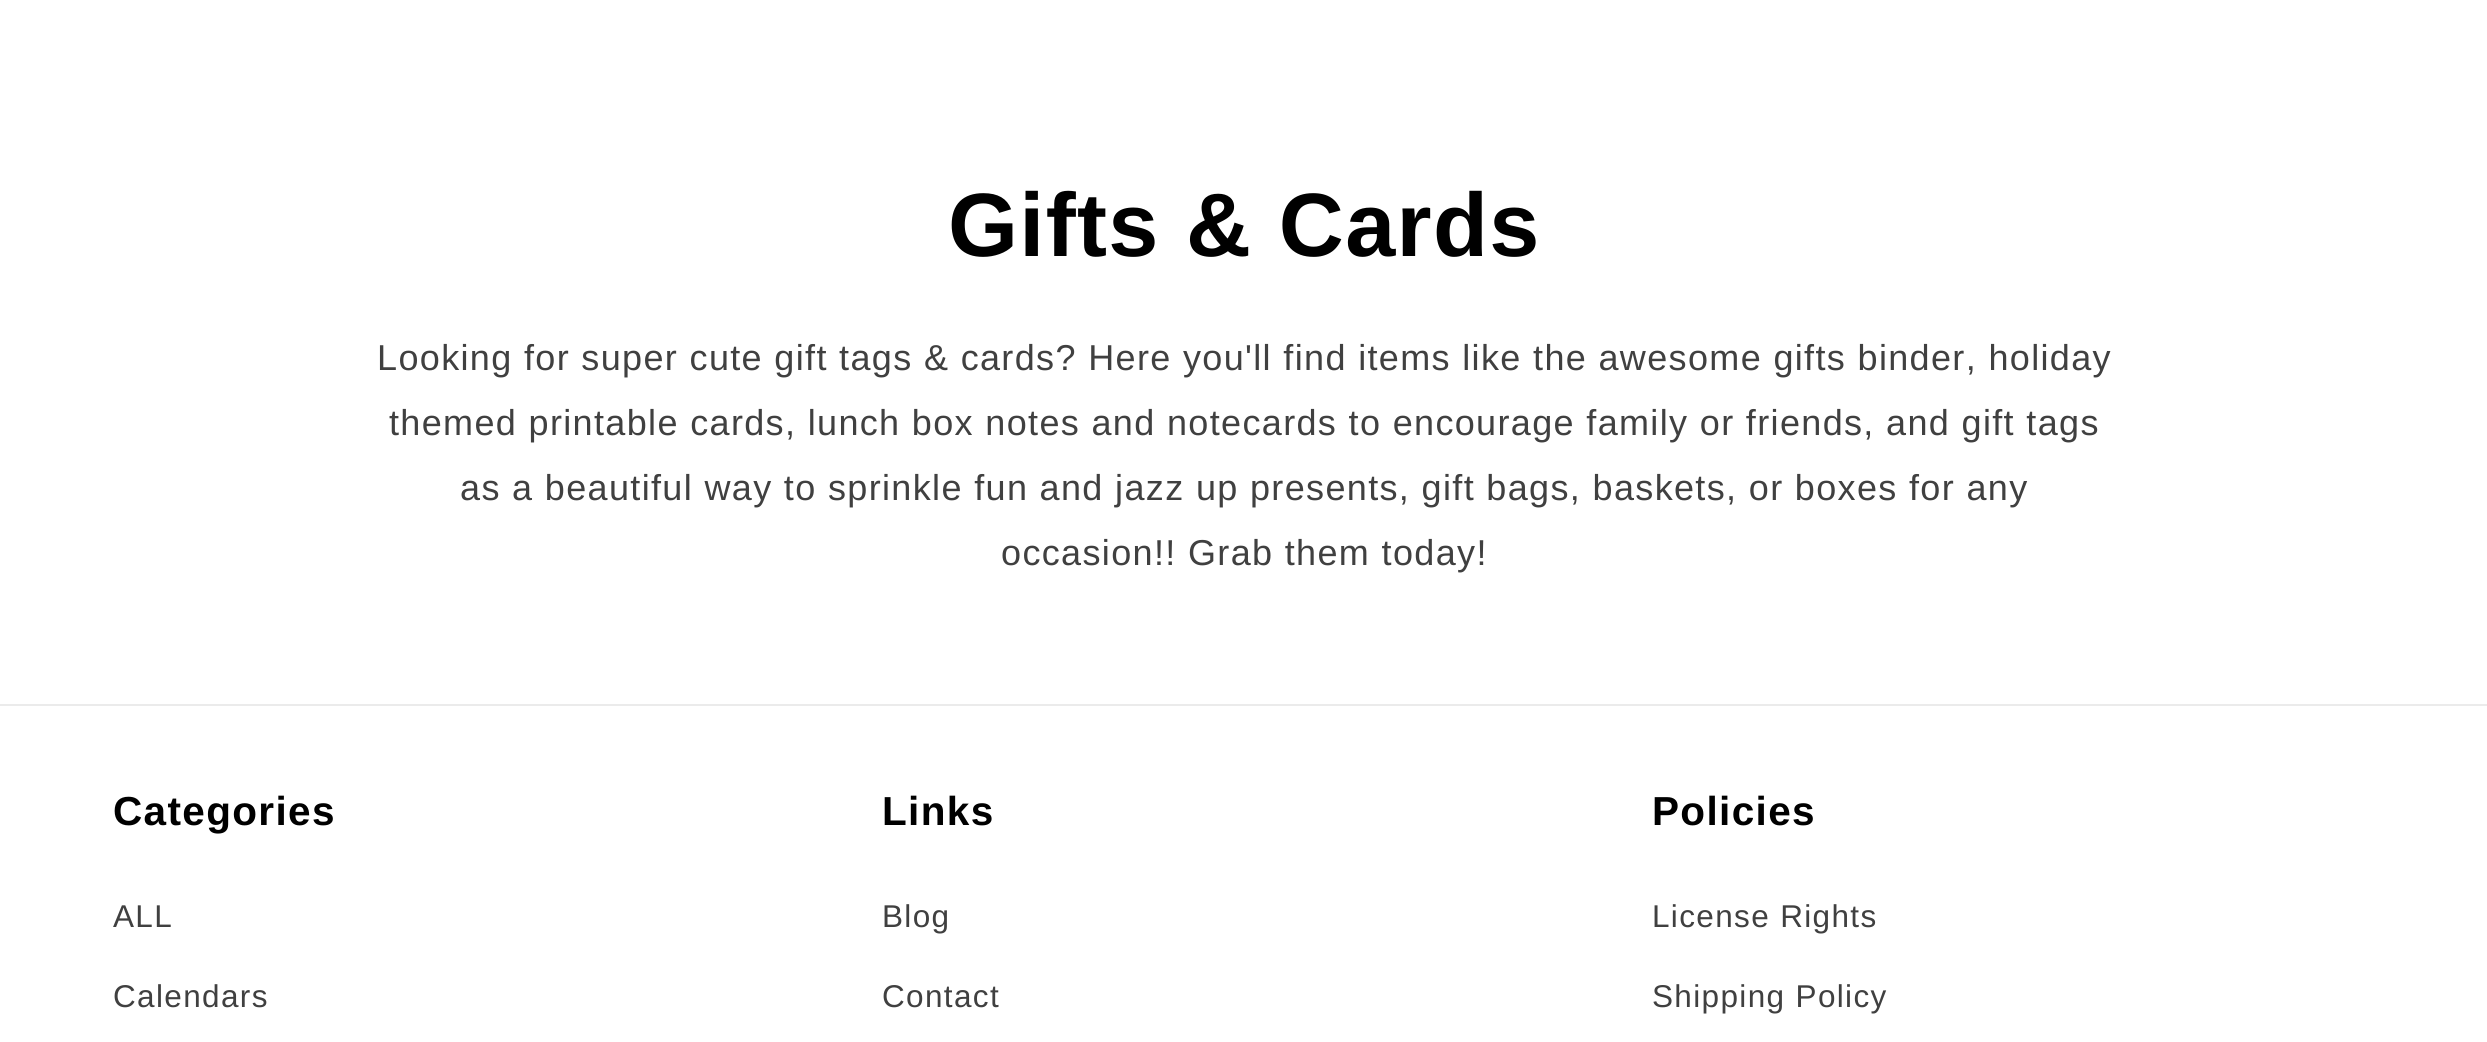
import math
import cairo

surface = cairo.ImageSurface(cairo.FORMAT_RGB24, 2487, 1042)
c = cairo.Context(surface)
options = cairo.FontOptions()
options.set_hint_metrics(cairo.HINT_METRICS_OFF)
options.set_hint_style(cairo.HINT_STYLE_NONE)
c.set_font_options(options)
c.set_miter_limit(4)
def C(code):
 c.set_source_rgb(*(v / 255 for v in bytes.fromhex(code[-6:])))
def F(family, size, italic, bold):
 c.select_font_face(family, cairo.FONT_SLANT_ITALIC if italic else cairo.FONT_SLANT_NORMAL, cairo.FONT_WEIGHT_BOLD if bold else cairo.FONT_WEIGHT_NORMAL)
 c.set_font_size(size)
def L(x, y, s, letter, word):
 c.move_to(x, y)
 for ch in s:
  c.show_text(ch)
  c.rel_move_to(letter + word * (ch == ' '), 0)
def R(x, y, w, h):
 c.rectangle(x, y, w, h)
 c.fill()
C('ffffff')
c.paint()
F('Liberation Sans',90,0,1)
C('000000')
L(948,256,'Gifts & Cards',1.35,0)
F('Liberation Sans',36,0,0)
C('404040')
L(377,370,'Looking for super cute gift tags & cards? Here you\'ll find items like the awesome gifts binder, holiday',1.35,0)
L(389,435,'themed printable cards, lunch box notes and notecards to encourage family or friends, and gift tags',1.35,0)
L(460,500,'as a beautiful way to sprinkle fun and jazz up presents, gift bags, baskets, or boxes for any',1.35,0)
L(1001,565,'occasion!! Grab them today!',1.35,0)
C('ebebeb')
R(0,704,2487,2)
F('Liberation Sans',40.5,0,1)
C('000000')
L(113,825,'Categories',1.35,0)
F('Liberation Sans',31.5,0,0)
C('404040')
L(113,927,'ALL',1.35,0)
L(113,1007,'Calendars',1.35,0)
F('Liberation Sans',40.5,0,1)
C('000000')
L(882,825,'Links',1.35,0)
F('Liberation Sans',31.5,0,0)
C('404040')
L(882,927,'Blog',1.35,0)
L(882,1007,'Contact',1.35,0)
F('Liberation Sans',40.5,0,1)
C('000000')
L(1652,825,'Policies',1.35,0)
F('Liberation Sans',31.5,0,0)
C('404040')
L(1652,927,'License Rights',1.35,0)
L(1652,1007,'Shipping Policy',1.35,0)
surface.write_to_png('o.png')
